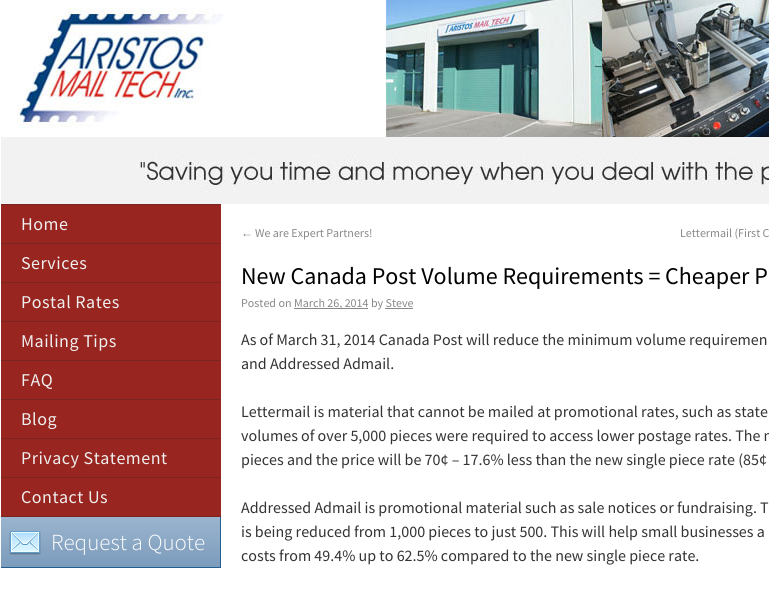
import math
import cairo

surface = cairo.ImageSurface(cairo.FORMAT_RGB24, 769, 591)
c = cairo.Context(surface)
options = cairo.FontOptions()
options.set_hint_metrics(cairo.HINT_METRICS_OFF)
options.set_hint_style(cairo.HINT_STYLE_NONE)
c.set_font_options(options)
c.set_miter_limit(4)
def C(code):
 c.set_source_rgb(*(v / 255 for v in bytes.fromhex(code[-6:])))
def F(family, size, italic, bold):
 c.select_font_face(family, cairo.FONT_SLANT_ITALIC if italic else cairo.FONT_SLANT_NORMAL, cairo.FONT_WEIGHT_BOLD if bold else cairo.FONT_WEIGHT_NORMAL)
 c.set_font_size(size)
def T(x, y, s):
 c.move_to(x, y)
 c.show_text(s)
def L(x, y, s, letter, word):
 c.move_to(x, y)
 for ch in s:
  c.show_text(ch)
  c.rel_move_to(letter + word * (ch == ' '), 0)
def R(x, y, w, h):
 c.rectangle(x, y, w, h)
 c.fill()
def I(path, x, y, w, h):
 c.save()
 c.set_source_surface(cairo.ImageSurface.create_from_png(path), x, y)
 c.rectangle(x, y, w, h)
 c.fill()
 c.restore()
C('ffffff')
c.paint()
I('1.png',17,8,207,120)
I('2.png',385,0,384,137)
I('3.png',1,137,768,67)
C('79241f')
R(1,204,220,1)
C('98251f')
R(1,205,220,38)
C('79241f')
R(1,243,220,1)
F('Source Sans Pro',18,0,0)
C('efefef')
L(21,230,'Home',.5,0)
C('98251f')
R(1,244,220,38)
C('79241f')
R(1,282,220,1)
C('efefef')
L(21,269,'Services',.5,0)
C('98251f')
R(1,283,220,38)
C('79241f')
R(1,321,220,1)
C('efefef')
L(21,308,'Postal Rates',.5,0)
C('98251f')
R(1,322,220,38)
C('79241f')
R(1,360,220,1)
C('efefef')
L(21,347,'Mailing Tips',.5,0)
C('98251f')
R(1,361,220,38)
C('79241f')
R(1,399,220,1)
C('efefef')
L(21,386,'FAQ',.5,0)
C('98251f')
R(1,400,220,38)
C('79241f')
R(1,438,220,1)
C('efefef')
L(21,425,'Blog',.5,0)
C('98251f')
R(1,439,220,38)
C('79241f')
R(1,477,220,1)
C('efefef')
L(21,464,'Privacy Statement',.5,0)
C('98251f')
R(1,478,220,38)
C('79241f')
R(1,516,220,1)
C('efefef')
L(21,503,'Contact Us',.5,0)
gradient = cairo.LinearGradient(111,517,111,567)
gradient.add_color_stop_rgba(.01,0.604,0.706,0.808,1)
gradient.add_color_stop_rgba(.99,0.486,0.612,0.737,1)
c.set_source(gradient)
R(1,517,219,50)
C('255e90')
R(220,517,1,51)
R(1,567,220,1)
I('4.png',9,531,32,24)
F('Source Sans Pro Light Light',23,0,0)
C('ffffff')
T(51,550,'Request a Quote')
F('Liberation Serif',12,0,0)
C('888888')
T(241,237,'←')
F('Source Sans Pro',12,0,0)
T(255,237,'We are Expert Partners!')
T(680,237,'Lettermail (First C')
F('Source Sans Pro',24,0,0)
C('000000')
T(241,284,'New Canada Post Volume Requirements = Cheaper P')
F('Source Sans Pro',12,0,0)
C('888888')
T(241,307,'Posted on')
R(294,308,74,1)
T(294,307,'March 26, 2014 by Steve')
R(385,308,28,1)
F('Source Sans Pro',16,0,0)
C('333333')
T(241,345,'As of March 31, 2014 Canada Post will reduce the minimum volume requiremen')
T(241,369,'and Addressed Admail.')
T(241,417,'Lettermail is material that cannot be mailed at promotional rates, such as state')
T(241,441,'volumes of over 5,000 pieces were required to access lower postage rates. The n')
T(241,465,'pieces and the price will be 70¢ – 17.6% less than the new single piece rate (85¢')
T(241,513,'Addressed Admail is promotional material such as sale notices or fundraising. T')
T(241,537,'is being reduced from 1,000 pieces to just 500. This will help small businesses a')
T(241,561,'costs from 49.4% up to 62.5% compared to the new single piece rate.')
surface.write_to_png('o.png')
